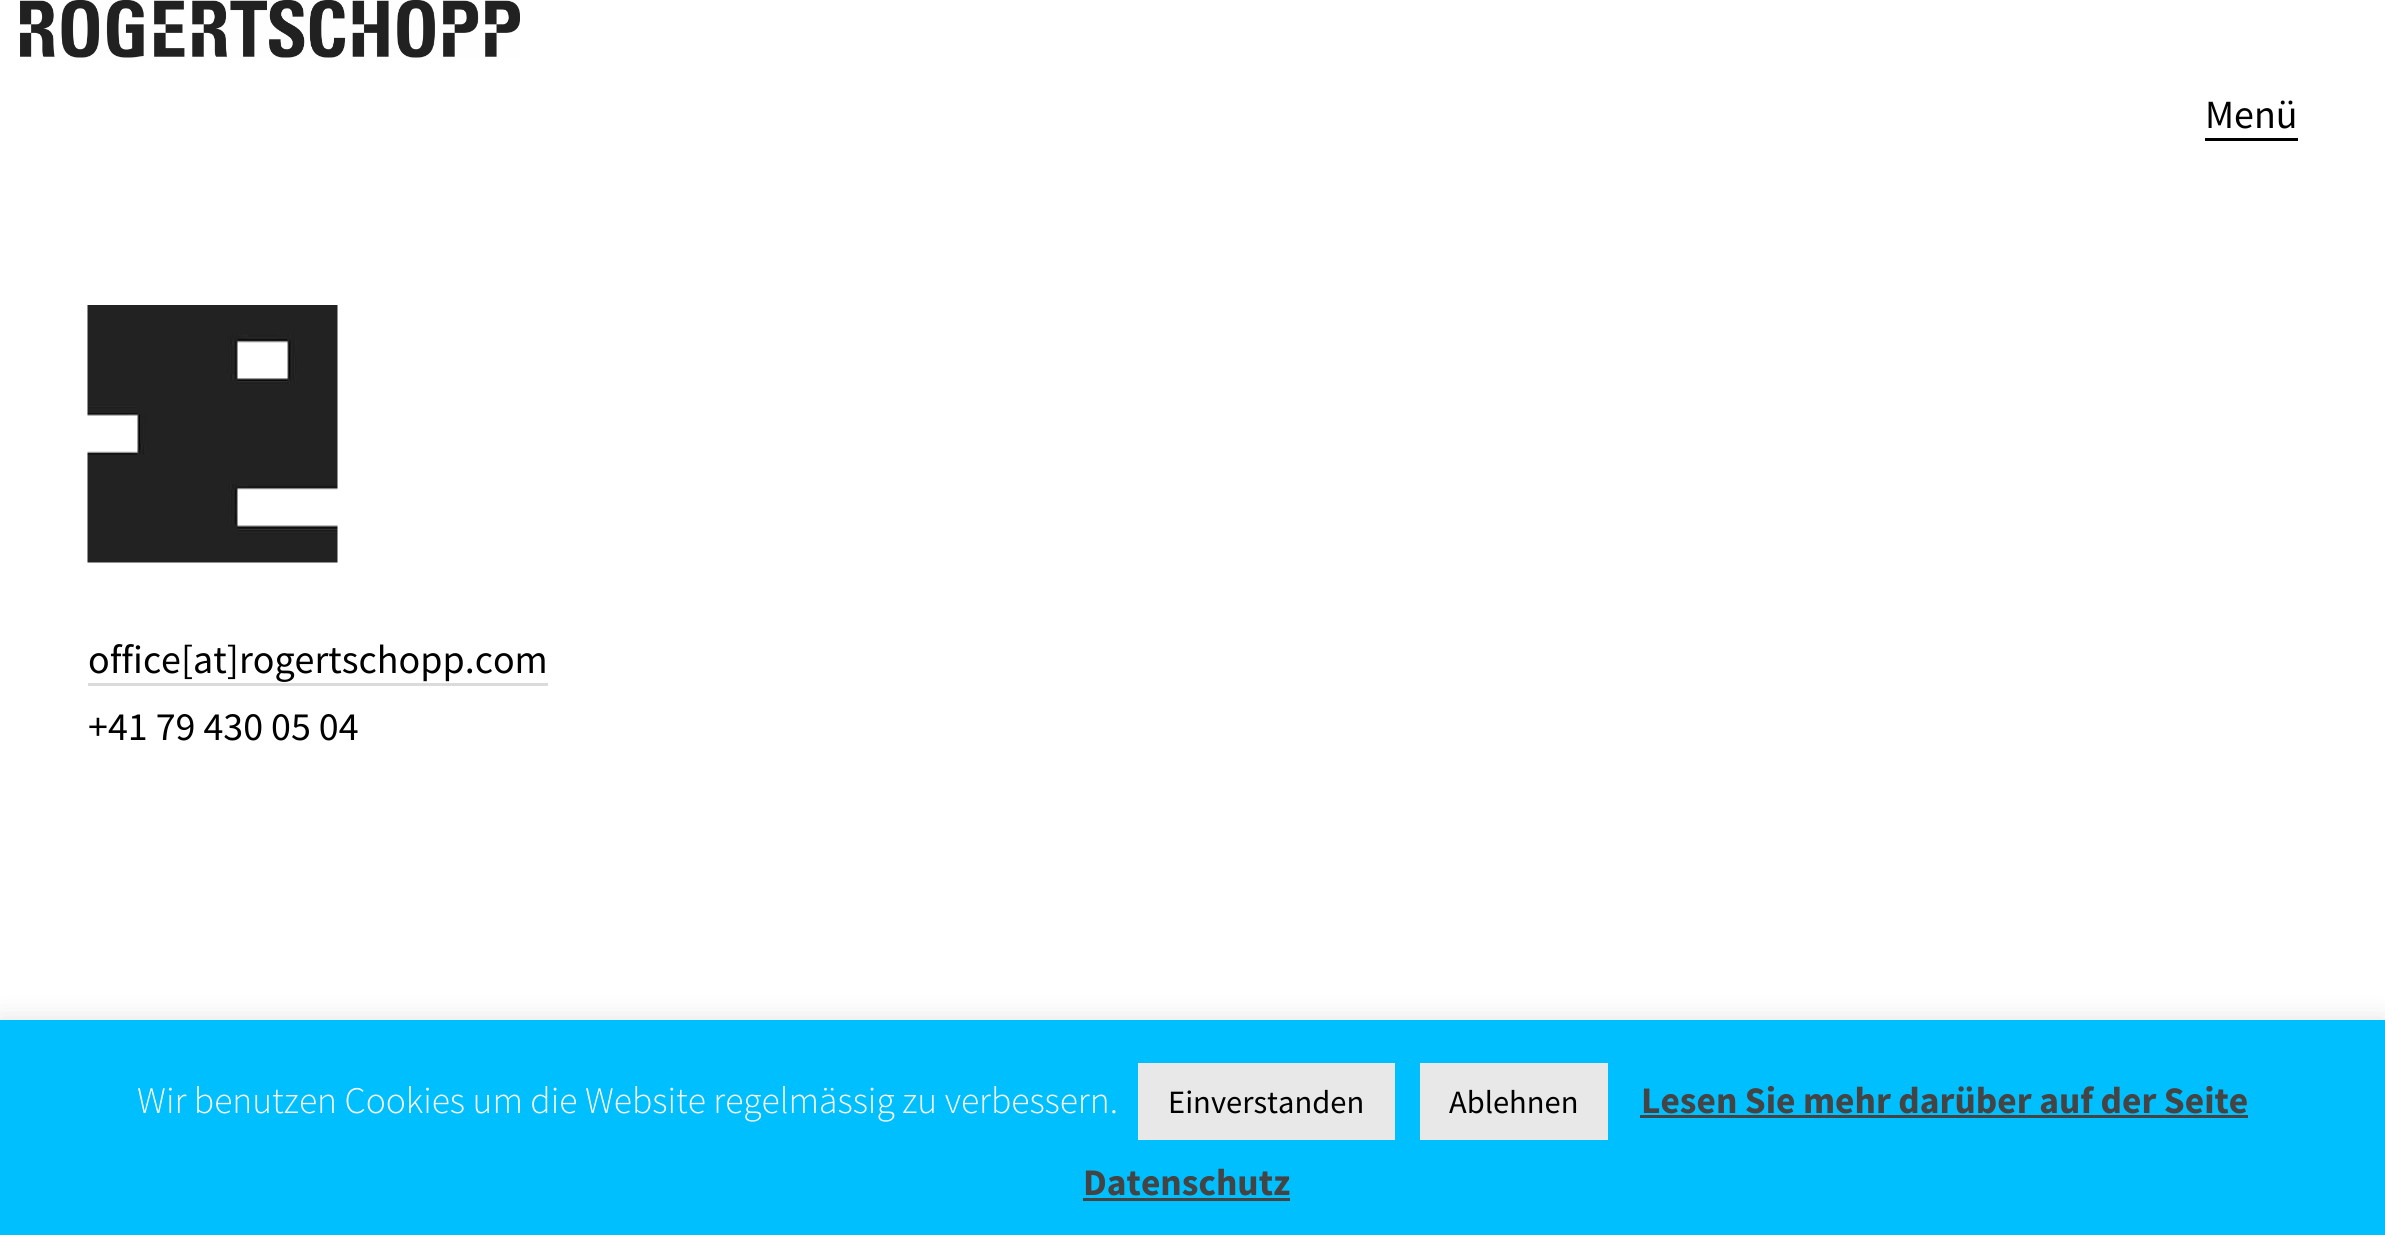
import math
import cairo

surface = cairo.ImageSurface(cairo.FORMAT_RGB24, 2385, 1235)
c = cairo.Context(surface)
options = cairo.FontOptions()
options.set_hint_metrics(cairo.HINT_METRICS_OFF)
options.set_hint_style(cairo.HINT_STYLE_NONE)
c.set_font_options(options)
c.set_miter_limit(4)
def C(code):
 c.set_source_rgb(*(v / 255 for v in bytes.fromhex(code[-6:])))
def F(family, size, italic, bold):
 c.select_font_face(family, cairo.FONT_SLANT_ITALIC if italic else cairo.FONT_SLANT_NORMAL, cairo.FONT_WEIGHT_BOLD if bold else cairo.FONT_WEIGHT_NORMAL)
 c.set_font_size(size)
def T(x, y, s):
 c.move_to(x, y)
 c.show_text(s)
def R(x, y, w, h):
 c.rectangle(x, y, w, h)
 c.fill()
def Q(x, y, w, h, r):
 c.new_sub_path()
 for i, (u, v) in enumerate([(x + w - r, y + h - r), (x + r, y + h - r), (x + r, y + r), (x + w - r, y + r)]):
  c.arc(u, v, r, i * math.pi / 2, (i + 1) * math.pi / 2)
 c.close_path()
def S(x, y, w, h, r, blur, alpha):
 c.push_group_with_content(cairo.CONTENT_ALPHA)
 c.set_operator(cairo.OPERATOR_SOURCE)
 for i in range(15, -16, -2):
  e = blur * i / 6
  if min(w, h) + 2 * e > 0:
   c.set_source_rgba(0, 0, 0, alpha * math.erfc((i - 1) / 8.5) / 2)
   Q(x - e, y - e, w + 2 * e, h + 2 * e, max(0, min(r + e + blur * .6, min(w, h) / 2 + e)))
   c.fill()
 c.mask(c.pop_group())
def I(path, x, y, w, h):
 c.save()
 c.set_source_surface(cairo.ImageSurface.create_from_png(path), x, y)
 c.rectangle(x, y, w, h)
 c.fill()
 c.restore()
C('ffffff')
c.paint()
I('1.png',20,0,500,58)
C('000000')
R(2205,138,93,3)
F('Source Sans Pro',40,0,0)
T(2205,128,'Menü')
I('2.png',87,305,251,258)
T(88,673,'office[at]rogertschopp.com')
C('dbdbdb')
R(88,683,460,3)
C('000000')
T(88,740,'+41 79 430 05 04')
C('acabab')
S(0,1018,2385,215,0,12.5,.3)
C('00bfff')
R(0,1020,2385,215)
F('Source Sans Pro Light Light',37.5,0,0)
C('ffffff')
T(137,1113,'Wir benutzen Cookies um die Website regelmässig zu verbessern.')
C('e8e8e8')
R(1138,1063,257,77)
F('Source Sans Pro',32.5,0,0)
C('000000')
T(1168,1113,'Einverstanden')
C('e8e8e8')
R(1420,1063,188,77)
C('000000')
T(1449,1113,'Ablehnen')
F('Source Sans Pro',37.5,0,1)
C('444444')
T(1641,1113,'Lesen Sie mehr darüber auf der Seite')
R(1640,1115,608,3)
T(1083,1195,'Datenschutz')
R(1083,1198,207,3)
surface.write_to_png('o.png')
